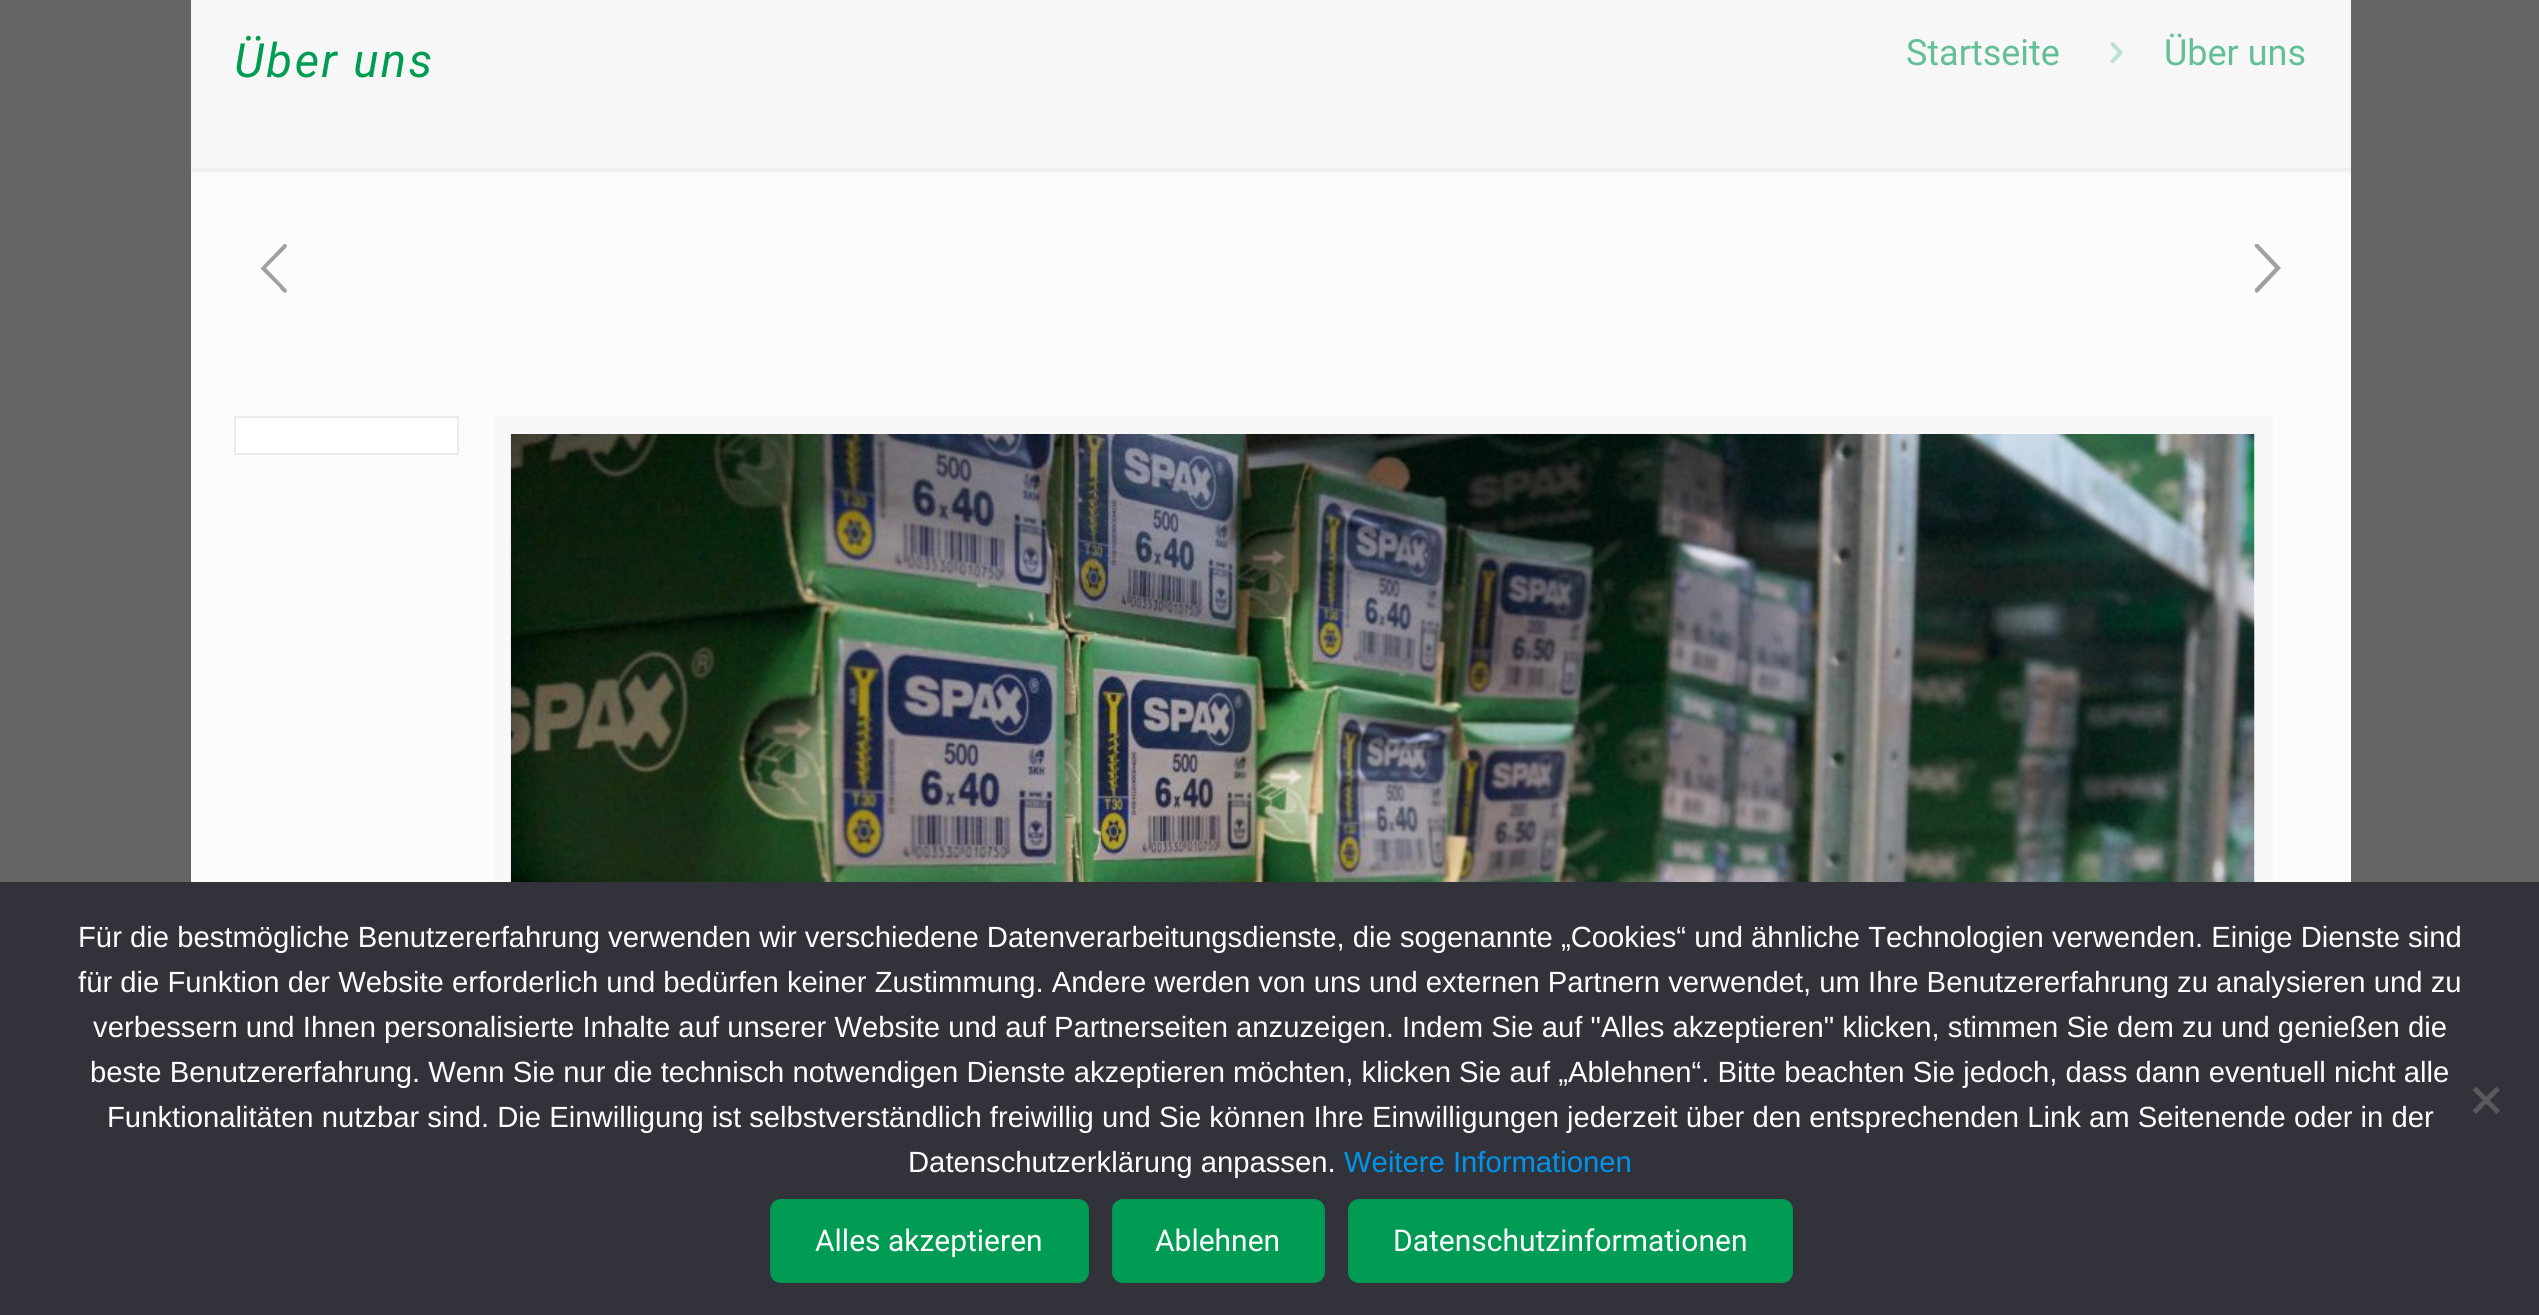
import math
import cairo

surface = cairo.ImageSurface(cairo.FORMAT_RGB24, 2539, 1315)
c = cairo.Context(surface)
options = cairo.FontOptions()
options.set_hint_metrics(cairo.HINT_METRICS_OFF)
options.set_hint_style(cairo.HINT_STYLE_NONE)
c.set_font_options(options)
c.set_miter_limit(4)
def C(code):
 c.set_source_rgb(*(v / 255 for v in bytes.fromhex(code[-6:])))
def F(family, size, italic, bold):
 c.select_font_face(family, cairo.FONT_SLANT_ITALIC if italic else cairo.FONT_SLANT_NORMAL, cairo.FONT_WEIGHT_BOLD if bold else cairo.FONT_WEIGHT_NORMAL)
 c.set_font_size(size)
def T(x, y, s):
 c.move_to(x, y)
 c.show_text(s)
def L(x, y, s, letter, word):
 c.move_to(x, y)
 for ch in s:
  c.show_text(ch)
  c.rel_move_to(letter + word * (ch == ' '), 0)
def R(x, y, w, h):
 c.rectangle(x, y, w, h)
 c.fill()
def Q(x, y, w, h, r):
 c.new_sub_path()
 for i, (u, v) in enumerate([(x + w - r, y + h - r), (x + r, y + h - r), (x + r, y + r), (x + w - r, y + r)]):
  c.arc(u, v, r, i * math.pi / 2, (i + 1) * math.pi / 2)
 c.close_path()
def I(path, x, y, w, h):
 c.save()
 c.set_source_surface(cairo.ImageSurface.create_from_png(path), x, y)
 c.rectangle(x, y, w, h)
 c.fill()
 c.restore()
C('656565')
c.paint()
C('fcfcfc')
R(191,169,2160,713)
C('f7f7f7')
R(191,0,2160,169)
F('Roboto',47.25,1,0)
C('009c53')
L(234,77,'Über uns',2.25,0)
F('Roboto',36,0,0)
C('63c095')
T(1906,65,'Startseite')
I('1.png',2110,42,13,21)
T(2164,65,'Über uns')
I('2.png',191,168,2160,5)
C('a0a0a0')
c.new_path()
c.move_to(286,289)
c.line_to(287,291)
c.curve_to(286,296,280,289,280,288)
c.line_to(261,269)
c.line_to(261,268)
c.line_to(284,244)
c.line_to(285,244)
c.curve_to(290,245,284,250,283,251)
c.line_to(266,268)
c.close_path()
c.fill()
c.new_path()
c.move_to(2255,289)
c.line_to(2275,268)
c.line_to(2259,251)
c.curve_to(2258,250,2252,245,2256,244)
c.line_to(2258,244)
c.line_to(2281,268)
c.line_to(2280,269)
c.line_to(2262,288)
c.curve_to(2261,289,2256,296,2255,291)
c.close_path()
c.fill()
C('ffffff')
c.rectangle(235,417,223,37)
c.fill_preserve()
C('ebebeb')
c.stroke()
c.rectangle(502,425,1762,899)
C('f8f8f8')
c.set_line_width(18)
c.stroke()
I('3.png',510,434,1745,448)
C('32323a')
R(0,882,2539,433)
F('Liberation Sans',29.25,0,0)
C('ffffff')
T(78,947,'Für die bestmögliche Benutzererfahrung verwenden wir verschiedene Datenverarbeitungsdienste, die sogenannte „Cookies“ und ähnliche Technologien verwenden. Einige Dienste sind')
T(78,992,'für die Funktion der Website erforderlich und bedürfen keiner Zustimmung. Andere werden von uns und externen Partnern verwendet, um Ihre Benutzererfahrung zu analysieren und zu')
T(93,1037,'verbessern und Ihnen personalisierte Inhalte auf unserer Website und auf Partnerseiten anzuzeigen. Indem Sie auf "Alles akzeptieren" klicken, stimmen Sie dem zu und genießen die')
T(90,1082,'beste Benutzererfahrung. Wenn Sie nur die technisch notwendigen Dienste akzeptieren möchten, klicken Sie auf „Ablehnen“. Bitte beachten Sie jedoch, dass dann eventuell nicht alle')
T(107,1127,'Funktionalitäten nutzbar sind. Die Einwilligung ist selbstverständlich freiwillig und Sie können Ihre Einwilligungen jederzeit über den entsprechenden Link am Seitenende oder in der')
T(908,1172,'Datenschutzerklärung anpassen.')
C('0095eb')
T(1344,1172,'Weitere Informationen')
C('59595d')
c.new_path()
c.move_to(2496.5,1086.5)
c.line_to(2500,1090)
c.line_to(2476,1114)
c.line_to(2472.5,1110.5)
c.close_path()
c.fill()
c.new_path()
c.move_to(2472.5,1090)
c.line_to(2476,1086.5)
c.line_to(2500,1110.5)
c.line_to(2496.5,1114)
c.close_path()
c.fill()
C('009c53')
Q(770,1199,319,84,11)
c.fill()
c.rectangle(771,1200,317,82)
c.set_source_rgba(0,0,0,0.03)
c.set_line_width(2)
c.stroke()
F('Roboto',30,0,0)
C('ffffff')
T(815,1251,'Alles akzeptieren')
C('009c53')
Q(1112,1199,213,84,11)
c.fill()
c.rectangle(1113,1200,211,82)
c.set_source_rgba(0,0,0,0.03)
c.stroke()
C('ffffff')
T(1155,1251,'Ablehnen')
C('009c53')
Q(1348,1199,445,84,11)
c.fill()
c.rectangle(1349,1200,443,82)
c.set_source_rgba(0,0,0,0.03)
c.stroke()
C('ffffff')
T(1393,1251,'Datenschutzinformationen')
surface.write_to_png('o.png')
